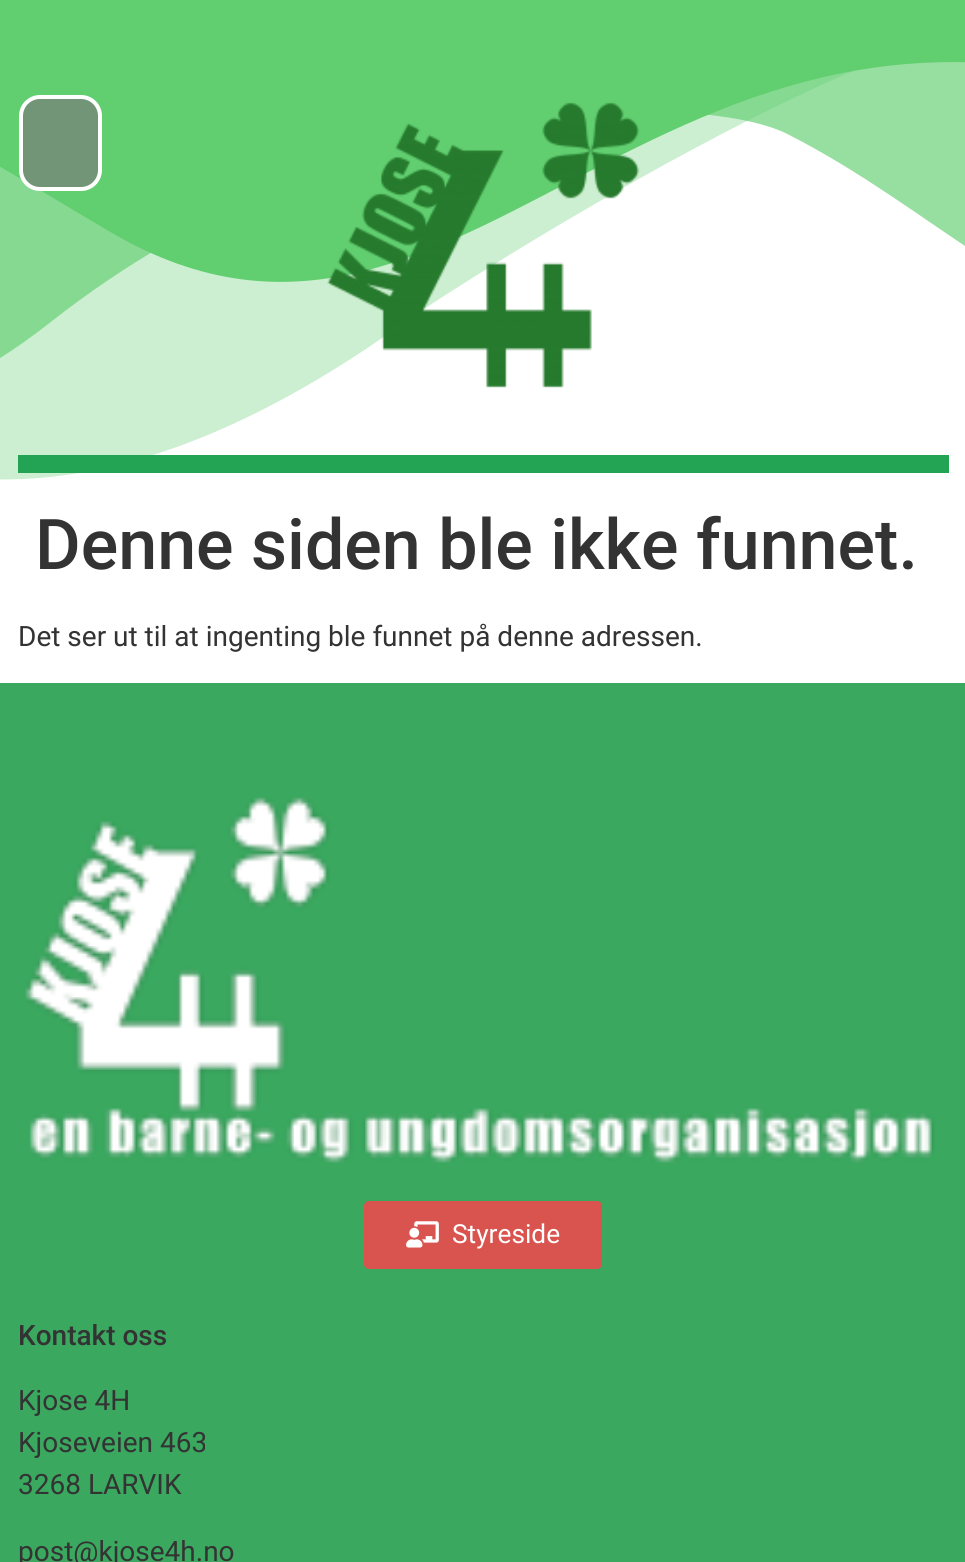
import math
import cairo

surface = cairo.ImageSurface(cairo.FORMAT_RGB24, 965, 1562)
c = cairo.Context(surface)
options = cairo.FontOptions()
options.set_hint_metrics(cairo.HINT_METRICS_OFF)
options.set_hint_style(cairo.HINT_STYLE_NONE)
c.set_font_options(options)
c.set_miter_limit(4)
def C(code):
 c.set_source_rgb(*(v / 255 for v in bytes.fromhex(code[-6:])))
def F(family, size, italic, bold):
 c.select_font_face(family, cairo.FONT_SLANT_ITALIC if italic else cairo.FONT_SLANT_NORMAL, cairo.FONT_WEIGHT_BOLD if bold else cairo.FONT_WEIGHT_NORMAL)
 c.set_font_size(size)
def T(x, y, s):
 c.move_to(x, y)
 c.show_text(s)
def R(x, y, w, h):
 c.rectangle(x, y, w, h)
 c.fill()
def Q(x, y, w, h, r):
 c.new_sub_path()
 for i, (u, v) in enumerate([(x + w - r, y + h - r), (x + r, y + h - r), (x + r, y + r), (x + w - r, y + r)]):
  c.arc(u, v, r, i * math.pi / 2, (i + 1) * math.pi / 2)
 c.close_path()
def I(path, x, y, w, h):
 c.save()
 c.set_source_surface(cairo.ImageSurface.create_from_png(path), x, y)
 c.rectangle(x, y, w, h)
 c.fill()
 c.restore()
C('ffffff')
c.paint()
I('1.png',0,0,965,480)
I('2.png',327,102,313,286)
C('23a455')
R(18,455,931,18)
F('Roboto Medium',70,0,0)
C('333333')
T(35,569,'Denne siden ble ikke funnet.')
F('Roboto',28,0,0)
T(18,646,'Det ser ut til at ingenting ble funnet på denne adressen.')
c.set_source_rgba(0.478,0.478,0.478,0.69)
Q(21,97,79,92,19)
c.fill_preserve()
C('ffffff')
c.set_line_width(4)
c.stroke()
C('3aa85f')
R(0,683,965,879)
I('3.png',25,797,910,366)
C('d9534f')
Q(364,1201,238,68,5)
c.fill()
I('4.png',406,1221,33,27)
F('Roboto',26.25,0,0)
C('ffffff')
T(452,1243,'Styreside')
F('Roboto Medium',28,0,0)
C('333333')
T(18,1345,'Kontakt oss')
F('Roboto',28,0,0)
T(18,1410,'Kjose 4H')
T(18,1452,'Kjoseveien 463')
T(18,1494,'3268 LARVIK')
T(18,1561,'post@kjose4h.no')
surface.write_to_png('o.png')
